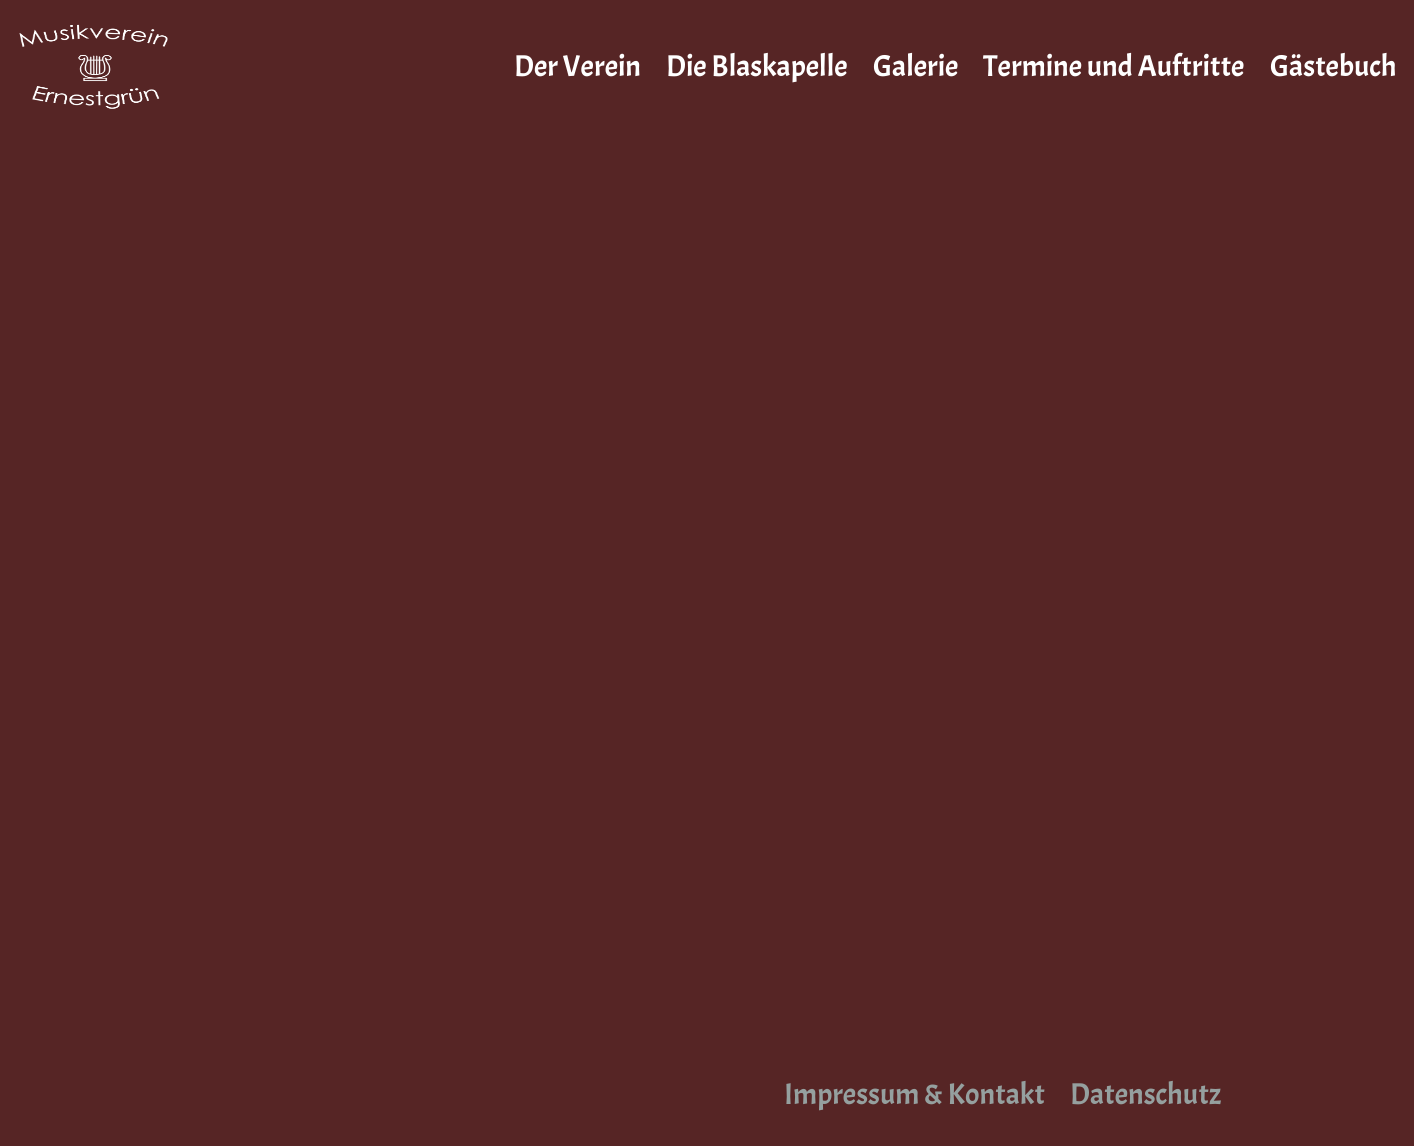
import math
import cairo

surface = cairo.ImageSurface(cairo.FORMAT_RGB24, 1414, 1146)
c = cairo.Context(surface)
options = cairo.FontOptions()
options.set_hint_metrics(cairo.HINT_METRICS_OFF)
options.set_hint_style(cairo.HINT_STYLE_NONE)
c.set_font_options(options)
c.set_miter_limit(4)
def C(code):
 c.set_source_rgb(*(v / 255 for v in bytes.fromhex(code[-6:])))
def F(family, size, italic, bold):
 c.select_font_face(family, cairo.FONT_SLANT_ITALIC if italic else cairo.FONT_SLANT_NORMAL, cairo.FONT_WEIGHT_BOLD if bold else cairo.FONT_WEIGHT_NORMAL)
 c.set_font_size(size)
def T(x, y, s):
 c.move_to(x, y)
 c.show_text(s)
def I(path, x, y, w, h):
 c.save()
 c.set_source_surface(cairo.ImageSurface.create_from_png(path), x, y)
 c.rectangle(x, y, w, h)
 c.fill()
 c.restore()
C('562525')
c.paint()
I('1.png',19,24,149,85)
F('Acme',30,0,0)
C('ffffff')
T(514,76,'Der Verein')
T(666,76,'Die Blaskapelle')
T(873,76,'Galerie')
T(983,76,'Termine und Auftritte')
T(1270,76,'Gästebuch')
C('95a09f')
T(784,1104,'Impressum & Kontakt')
T(1070,1104,'Datenschutz')
surface.write_to_png('o.png')
